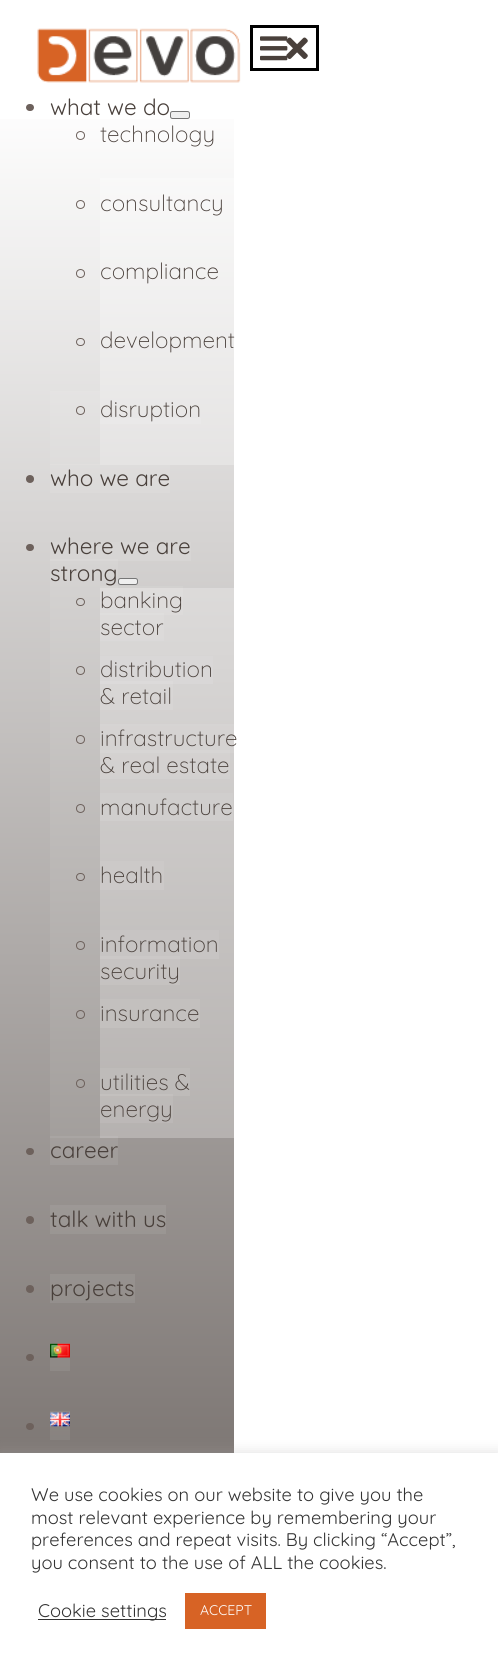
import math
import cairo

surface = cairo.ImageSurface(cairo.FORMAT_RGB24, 498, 1666)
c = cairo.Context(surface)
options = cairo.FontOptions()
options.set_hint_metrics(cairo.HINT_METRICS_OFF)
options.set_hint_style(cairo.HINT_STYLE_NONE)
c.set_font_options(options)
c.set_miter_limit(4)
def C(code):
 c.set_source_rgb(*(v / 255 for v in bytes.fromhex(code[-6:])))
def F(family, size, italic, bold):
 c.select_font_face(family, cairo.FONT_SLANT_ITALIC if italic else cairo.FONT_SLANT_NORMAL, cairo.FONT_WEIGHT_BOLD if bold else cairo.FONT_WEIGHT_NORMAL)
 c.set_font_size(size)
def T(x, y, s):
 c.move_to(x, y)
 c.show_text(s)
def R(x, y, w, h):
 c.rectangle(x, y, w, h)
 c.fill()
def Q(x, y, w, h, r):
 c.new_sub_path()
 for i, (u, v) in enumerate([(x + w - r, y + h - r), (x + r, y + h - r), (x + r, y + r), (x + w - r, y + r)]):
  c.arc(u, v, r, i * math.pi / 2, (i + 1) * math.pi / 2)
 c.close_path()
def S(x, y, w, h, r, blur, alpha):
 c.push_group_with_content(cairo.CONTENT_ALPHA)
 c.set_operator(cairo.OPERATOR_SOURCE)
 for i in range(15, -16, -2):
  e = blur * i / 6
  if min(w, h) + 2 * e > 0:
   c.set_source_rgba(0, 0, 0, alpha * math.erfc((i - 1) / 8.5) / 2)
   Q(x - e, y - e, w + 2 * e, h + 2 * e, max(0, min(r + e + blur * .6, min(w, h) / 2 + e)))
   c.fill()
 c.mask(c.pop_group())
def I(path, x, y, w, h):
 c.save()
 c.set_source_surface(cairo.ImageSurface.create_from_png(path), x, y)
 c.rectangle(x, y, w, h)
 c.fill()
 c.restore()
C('ffffff')
c.paint()
I('1.png',37,28,204,55)
c.rectangle(251.5,26.5,66,43)
C('000000')
c.set_line_width(3)
c.stroke()
I('2.png',260,36,28,25)
I('3.png',286,37,22,22)
gradient = cairo.LinearGradient(117,94,117,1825)
gradient.add_color_stop_rgba(0,1,1,1,1)
gradient.add_color_stop_rgba(1,0.357,0.325,0.31,1)
c.set_source(gradient)
R(0,119,234,1334)
gradient = cairo.LinearGradient(117,94,117,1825)
gradient.add_color_stop_rgba(0,1,1,1,1)
gradient.add_color_stop_rgba(1,0.4,0.373,0.357,1)
c.set_source(gradient)
R(50,1411,20,29)
R(50,1343,20,28)
R(50,1274,85,29)
R(50,1205,116,29)
R(50,1138,68,27)
R(118,586,65,2)
R(50,561,68,27)
gradient = cairo.LinearGradient(117,94,117,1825)
gradient.add_color_stop_rgba(0,1,1,1,1)
gradient.add_color_stop_rgba(1,0.443,0.416,0.4,1)
c.set_source(gradient)
R(100,586,18,2)
gradient = cairo.LinearGradient(117,94,117,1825)
gradient.add_color_stop_rgba(0,1,1,1,1)
gradient.add_color_stop_rgba(1,0.4,0.373,0.357,1)
c.set_source(gradient)
R(50,465,120,28)
R(50,588,50,548)
gradient = cairo.LinearGradient(117,94,117,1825)
gradient.add_color_stop_rgba(0,1,1,1,1)
gradient.add_color_stop_rgba(1,0.443,0.416,0.4,1)
c.set_source(gradient)
R(50,1136,50,2)
gradient = cairo.LinearGradient(117,94,117,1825)
gradient.add_color_stop_rgba(0,1,1,1,1)
gradient.add_color_stop_rgba(1,0.522,0.498,0.486,1)
c.set_source(gradient)
R(100,1069,134,69)
gradient = cairo.LinearGradient(117,94,117,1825)
gradient.add_color_stop_rgba(0,1,1,1,1)
gradient.add_color_stop_rgba(1,0.557,0.533,0.522,1)
c.set_source(gradient)
R(100,1136,18,2)
R(100,1096,73,27)
gradient = cairo.LinearGradient(117,94,117,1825)
gradient.add_color_stop_rgba(0,1,1,1,1)
gradient.add_color_stop_rgba(1,0.522,0.498,0.486,1)
c.set_source(gradient)
R(100,1000,134,69)
R(100,931,134,69)
gradient = cairo.LinearGradient(117,94,117,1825)
gradient.add_color_stop_rgba(0,1,1,1,1)
gradient.add_color_stop_rgba(1,0.557,0.533,0.522,1)
c.set_source(gradient)
R(100,959,80,26)
gradient = cairo.LinearGradient(117,94,117,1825)
gradient.add_color_stop_rgba(0,1,1,1,1)
gradient.add_color_stop_rgba(1,0.522,0.498,0.486,1)
c.set_source(gradient)
R(100,863,134,68)
R(100,794,134,69)
R(100,753,134,41)
gradient = cairo.LinearGradient(117,94,117,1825)
gradient.add_color_stop_rgba(0,1,1,1,1)
gradient.add_color_stop_rgba(1,0.557,0.533,0.522,1)
c.set_source(gradient)
R(100,753,130,26)
R(100,725,134,28)
gradient = cairo.LinearGradient(117,94,117,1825)
gradient.add_color_stop_rgba(0,1,1,1,1)
gradient.add_color_stop_rgba(1,0.588,0.565,0.557,1)
c.set_source(gradient)
R(100,750,130,3)
gradient = cairo.LinearGradient(117,94,117,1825)
gradient.add_color_stop_rgba(0,1,1,1,1)
gradient.add_color_stop_rgba(1,0.522,0.498,0.486,1)
c.set_source(gradient)
R(100,656,134,68)
gradient = cairo.LinearGradient(117,94,117,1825)
gradient.add_color_stop_rgba(0,1,1,1,1)
gradient.add_color_stop_rgba(1,0.557,0.533,0.522,1)
c.set_source(gradient)
R(100,724,134,1)
R(100,684,73,26)
gradient = cairo.LinearGradient(117,94,117,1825)
gradient.add_color_stop_rgba(0,1,1,1,1)
gradient.add_color_stop_rgba(1,0.522,0.498,0.486,1)
c.set_source(gradient)
R(100,588,134,68)
gradient = cairo.LinearGradient(117,94,117,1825)
gradient.add_color_stop_rgba(0,1,1,1,1)
gradient.add_color_stop_rgba(1,0.557,0.533,0.522,1)
c.set_source(gradient)
R(100,615,64,26)
R(100,588,83,27)
gradient = cairo.LinearGradient(117,94,117,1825)
gradient.add_color_stop_rgba(0,1,1,1,1)
gradient.add_color_stop_rgba(1,0.588,0.565,0.557,1)
c.set_source(gradient)
R(100,613,64,2)
gradient = cairo.LinearGradient(117,94,117,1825)
gradient.add_color_stop_rgba(0,1,1,1,1)
gradient.add_color_stop_rgba(1,0.4,0.373,0.357,1)
c.set_source(gradient)
R(50,391,50,73)
gradient = cairo.LinearGradient(117,94,117,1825)
gradient.add_color_stop_rgba(0,1,1,1,1)
gradient.add_color_stop_rgba(1,0.443,0.416,0.4,1)
c.set_source(gradient)
R(50,464,50,1)
gradient = cairo.LinearGradient(117,94,117,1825)
gradient.add_color_stop_rgba(0,1,1,1,1)
gradient.add_color_stop_rgba(1,0.522,0.498,0.486,1)
c.set_source(gradient)
R(100,396,134,69)
R(100,328,134,68)
R(100,259,134,69)
R(100,190,134,69)
R(100,178,134,12)
C('6d615c')
Q(26,104,8,7,3.5)
c.fill()
F('Quicksand',22.5,0,0)
C('49403b')
T(50,115,'what we do')
C('efefef')
Q(170.5,111.5,19,7,2)
c.fill_preserve()
C('767676')
c.set_line_width(1)
c.stroke()
c.arc(80.5,135.5,4,0,2 * math.pi)
C('6d615c')
c.stroke()
F('Quicksand Light',22.5,0,0)
C('49403b')
T(100,142,'technology')
c.new_path()
c.arc(80.5,204.5,4,0,2 * math.pi)
C('6d615c')
c.stroke()
C('49403b')
T(100,211,'consultancy')
c.new_path()
c.arc(80.5,273.5,4,0,2 * math.pi)
C('6d615c')
c.stroke()
C('49403b')
T(100,279,'compliance')
Q(76.5,338.5,8,7,3.5)
C('6d615c')
c.stroke()
C('49403b')
T(100,348,'development')
c.new_path()
c.arc(80.5,410.5,4,0,2 * math.pi)
C('6d615c')
c.stroke()
C('eae9e9')
R(100,418,101,6)
C('49403b')
T(100,417,'disruption')
C('6d615c')
c.new_path()
c.arc(30,479,4,0,2 * math.pi)
c.fill()
F('Quicksand',22.5,0,0)
C('49403b')
T(50,486,'who we are')
C('6d615c')
Q(26,544,8,7,3.5)
c.fill()
C('d7d5d4')
R(50,542,141,19)
C('49403b')
T(50,554,'where we are')
C('dad8d7')
R(50,559,68,2)
C('49403b')
T(50,581,'strong')
C('efefef')
Q(118.5,578.5,19,6,2)
c.fill_preserve()
C('767676')
c.stroke()
Q(76.5,598.5,8,7,3.5)
C('6d615c')
c.stroke()
F('Quicksand Light',22.5,0,0)
C('49403b')
T(100,608,'banking')
T(100,635,'sector')
c.new_path()
c.arc(80.5,670.5,4,0,2 * math.pi)
C('6d615c')
c.stroke()
C('d9d7d7')
R(100,656,113,28)
C('49403b')
T(100,677,'distribution')
C('dcdada')
R(100,681,73,3)
C('49403b')
T(100,704,'& retail')
c.new_path()
c.arc(80.5,739.5,4,0,2 * math.pi)
C('6d615c')
c.stroke()
C('49403b')
T(100,746,'infrastructure')
T(100,773,'& real estate')
c.new_path()
c.arc(80.5,808.5,4,0,2 * math.pi)
C('6d615c')
c.stroke()
C('d0cecd')
R(100,793,133,28)
C('49403b')
T(100,815,'manufacture')
Q(76.5,873.5,8,7,3.5)
C('6d615c')
c.stroke()
C('ccc9c8')
R(100,861,64,29)
C('49403b')
T(100,883,'health')
c.new_path()
c.arc(80.5,945.5,4,0,2 * math.pi)
C('6d615c')
c.stroke()
C('c7c4c3')
R(100,930,119,29)
C('49403b')
T(100,952,'information')
C('cbc8c7')
R(100,956,80,3)
C('49403b')
T(100,979,'security')
c.new_path()
c.arc(80.5,1014.5,4,0,2 * math.pi)
C('6d615c')
c.stroke()
C('c3c0be')
R(100,999,100,29)
C('49403b')
T(100,1021,'insurance')
c.new_path()
c.arc(80.5,1083.5,4,0,2 * math.pi)
C('6d615c')
c.stroke()
C('bebbb9')
R(100,1068,90,28)
C('49403b')
T(100,1090,'utilities &')
C('c3c0be')
R(100,1094,73,2)
C('49403b')
T(100,1117,'energy')
C('6d615c')
Q(26,1148,8,7,3.5)
c.fill()
F('Quicksand',22.5,0,0)
C('49403b')
T(50,1158,'career')
C('6d615c')
c.new_path()
c.arc(30,1220,4,0,2 * math.pi)
c.fill()
C('49403b')
T(50,1227,'talk with us')
C('6d615c')
c.new_path()
c.arc(30,1289,4,0,2 * math.pi)
c.fill()
C('49403b')
T(50,1296,'projects')
C('6d615c')
Q(26,1354,8,7,3.5)
c.fill()
I('4.png',50,1343,20,15)
Q(26,1423,8,7,3.5)
c.fill()
I('5.png',50,1412,20,15)
C('acabab')
S(0,1451,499,214,0,6,.3)
C('ffffff')
R(0,1453,498,213)
F('Quicksand',18.3,0,0)
C('333333')
T(31,1501,'We use cookies on our website to give you the')
T(31,1524,'most relevant experience by remembering your')
T(31,1546,'preferences and repeat visits. By clicking “Accept”,')
T(31,1569,'you consent to the use of ALL the cookies.')
R(38,1619,128,1)
T(38,1617,'Cookie settings')
C('d76325')
R(185,1593,81,36)
F('Quicksand',14,0,0)
C('ffffff')
T(200,1615,'ACCEPT')
surface.write_to_png('o.png')
